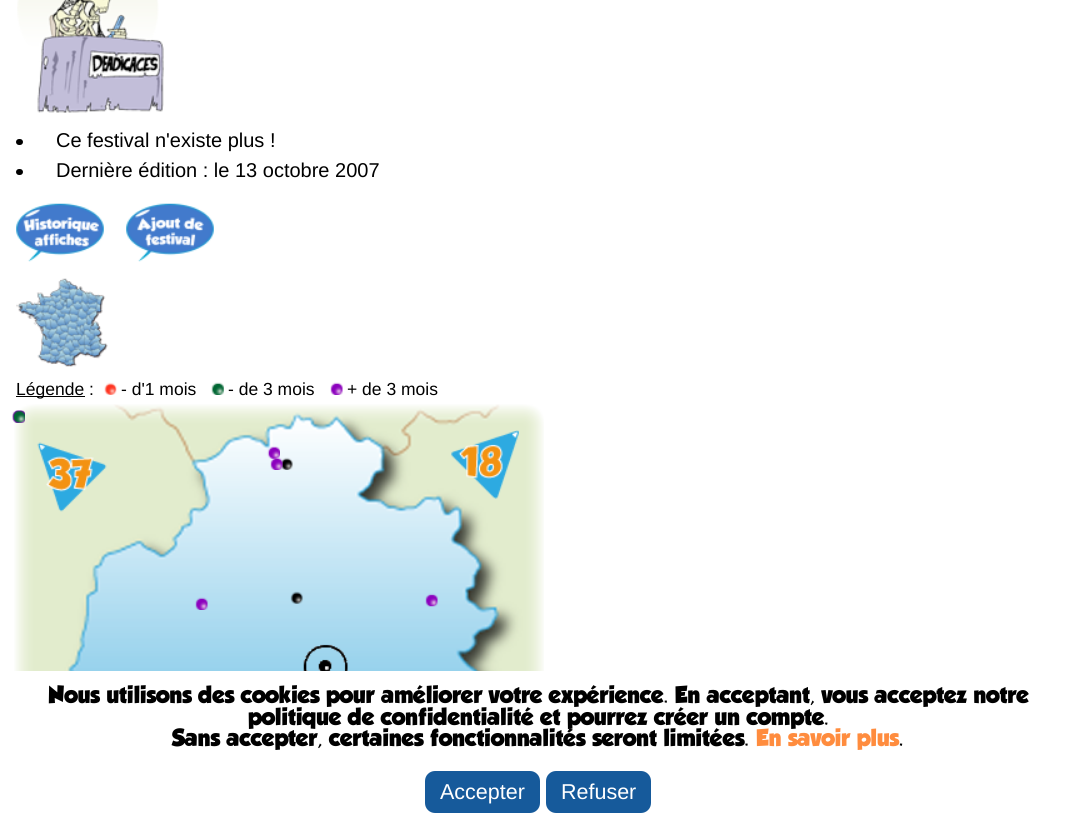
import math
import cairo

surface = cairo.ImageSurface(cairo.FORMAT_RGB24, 1076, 825)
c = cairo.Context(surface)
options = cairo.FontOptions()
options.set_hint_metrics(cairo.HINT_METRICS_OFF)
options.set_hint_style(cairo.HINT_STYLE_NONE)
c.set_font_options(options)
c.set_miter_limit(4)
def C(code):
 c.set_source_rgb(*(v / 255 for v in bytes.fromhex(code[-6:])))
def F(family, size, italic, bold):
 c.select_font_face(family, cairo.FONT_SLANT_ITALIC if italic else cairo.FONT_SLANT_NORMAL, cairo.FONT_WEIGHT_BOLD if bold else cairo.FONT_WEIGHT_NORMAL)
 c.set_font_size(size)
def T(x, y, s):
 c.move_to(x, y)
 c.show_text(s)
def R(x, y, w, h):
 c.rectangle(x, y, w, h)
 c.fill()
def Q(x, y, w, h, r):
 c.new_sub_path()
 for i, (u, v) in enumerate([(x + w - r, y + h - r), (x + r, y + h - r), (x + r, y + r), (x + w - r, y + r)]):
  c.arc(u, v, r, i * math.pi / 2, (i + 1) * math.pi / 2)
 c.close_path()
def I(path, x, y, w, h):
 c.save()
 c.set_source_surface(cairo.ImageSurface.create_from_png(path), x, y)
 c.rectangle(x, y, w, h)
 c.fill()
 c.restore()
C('ffffff')
c.paint()
I('1.png',17,0,147,113)
C('000000')
Q(16,139,7,6,3)
c.fill()
F('Liberation Sans',20,0,0)
T(56,147,'Ce festival n\'existe plus !')
Q(16,169,7,6,3)
c.fill()
T(56,177,'Dernière édition : le 13 octobre 2007')
I('2.png',16,203,88,59)
I('3.png',126,203,88,59)
I('4.png',16,278,92,89)
R(16,396,69,1)
F('Liberation Sans',17.5,0,0)
T(16,395,'Légende :')
I('5.png',104,382,13,13)
T(121,395,'- d\'1 mois')
I('6.png',211,382,13,13)
T(228,395,'- de 3 mois')
I('7.png',330,382,13,13)
T(347,395,'+ de 3 mois')
I('8.png',14,404,530,267)
I('9.png',12,410,13,13)
I('10.png',12,410,13,13)
I('11.png',12,410,13,13)
I('12.png',12,410,13,13)
I('13.png',12,410,13,13)
I('14.png',12,410,13,13)
I('15.png',37,442,70,70)
I('16.png',267,446,13,13)
I('17.png',451,430,68,69)
I('19.png',281,457,12,13)
I('18.png',270,457,13,13)
I('20.png',195,597,13,13)
I('21.png',290,591,13,13)
I('22.png',425,593,13,14)
I('23.png',303,644,45,27)
F('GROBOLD',21.5,0,1)
T(48,703,'Nous utilisons des cookies pour améliorer votre expérience. En acceptant, vous acceptez notre')
T(248,725,'politique de confidentialité et pourrez créer un compte.')
T(172,746,'Sans accepter, certaines fonctionnalités seront limitées.')
C('ff8c3e')
T(756,746,'En savoir plus')
C('000000')
T(899,746,'.')
C('165a9b')
Q(426.5,772.5,112,39,8.5)
c.fill_preserve()
c.set_line_width(3)
c.stroke()
F('Liberation Sans',21.5,0,0)
C('ffffff')
T(440,799,'Accepter')
C('165a9b')
Q(547.5,772.5,102,39,8.5)
c.fill_preserve()
c.stroke()
C('ffffff')
T(561,799,'Refuser')
surface.write_to_png('o.png')
